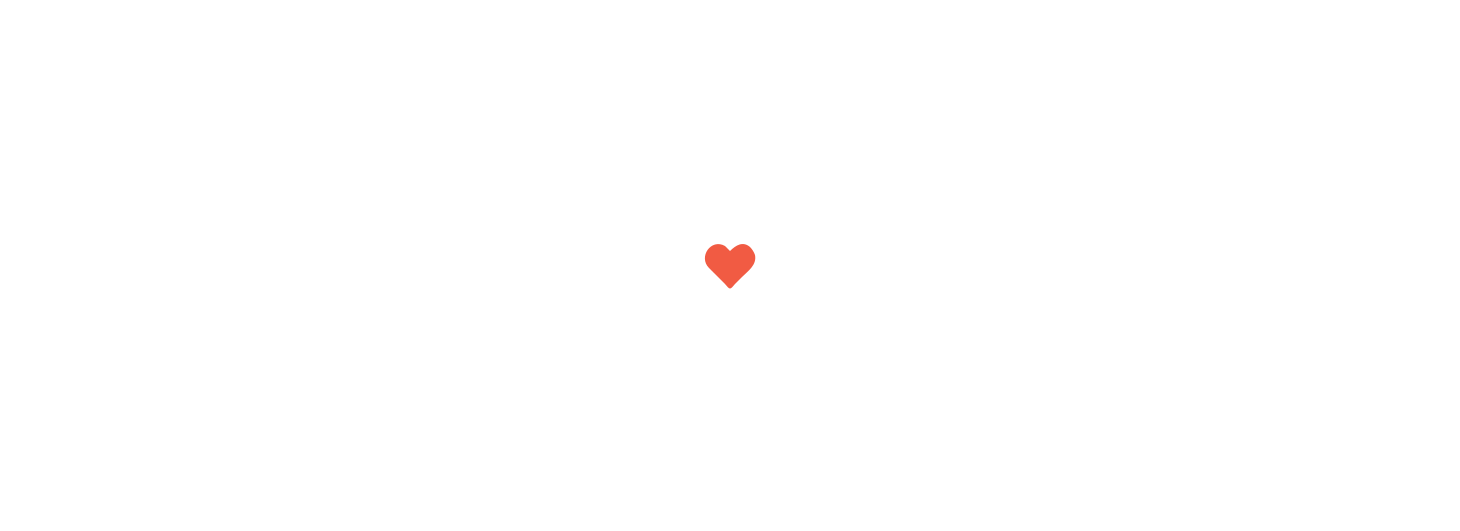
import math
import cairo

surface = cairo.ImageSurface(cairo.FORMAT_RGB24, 1460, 531)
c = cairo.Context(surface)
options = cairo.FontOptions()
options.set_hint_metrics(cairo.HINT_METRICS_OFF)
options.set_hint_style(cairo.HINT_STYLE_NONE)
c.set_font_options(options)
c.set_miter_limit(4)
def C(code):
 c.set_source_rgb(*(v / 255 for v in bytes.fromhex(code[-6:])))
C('ffffff')
c.paint()
C('f15b43')
c.new_path()
c.move_to(750,247)
c.curve_to(743,241,736,245,730,251)
c.line_to(725,246)
c.curve_to(711,238,698,257,709,268)
c.line_to(725,284)
c.curve_to(730,290,730,290,735,284)
c.line_to(742,277)
c.curve_to(748,271,757,265,755,255)
c.curve_to(754,252,752,249,750,247)
c.close_path()
c.fill()
surface.write_to_png('o.png')
